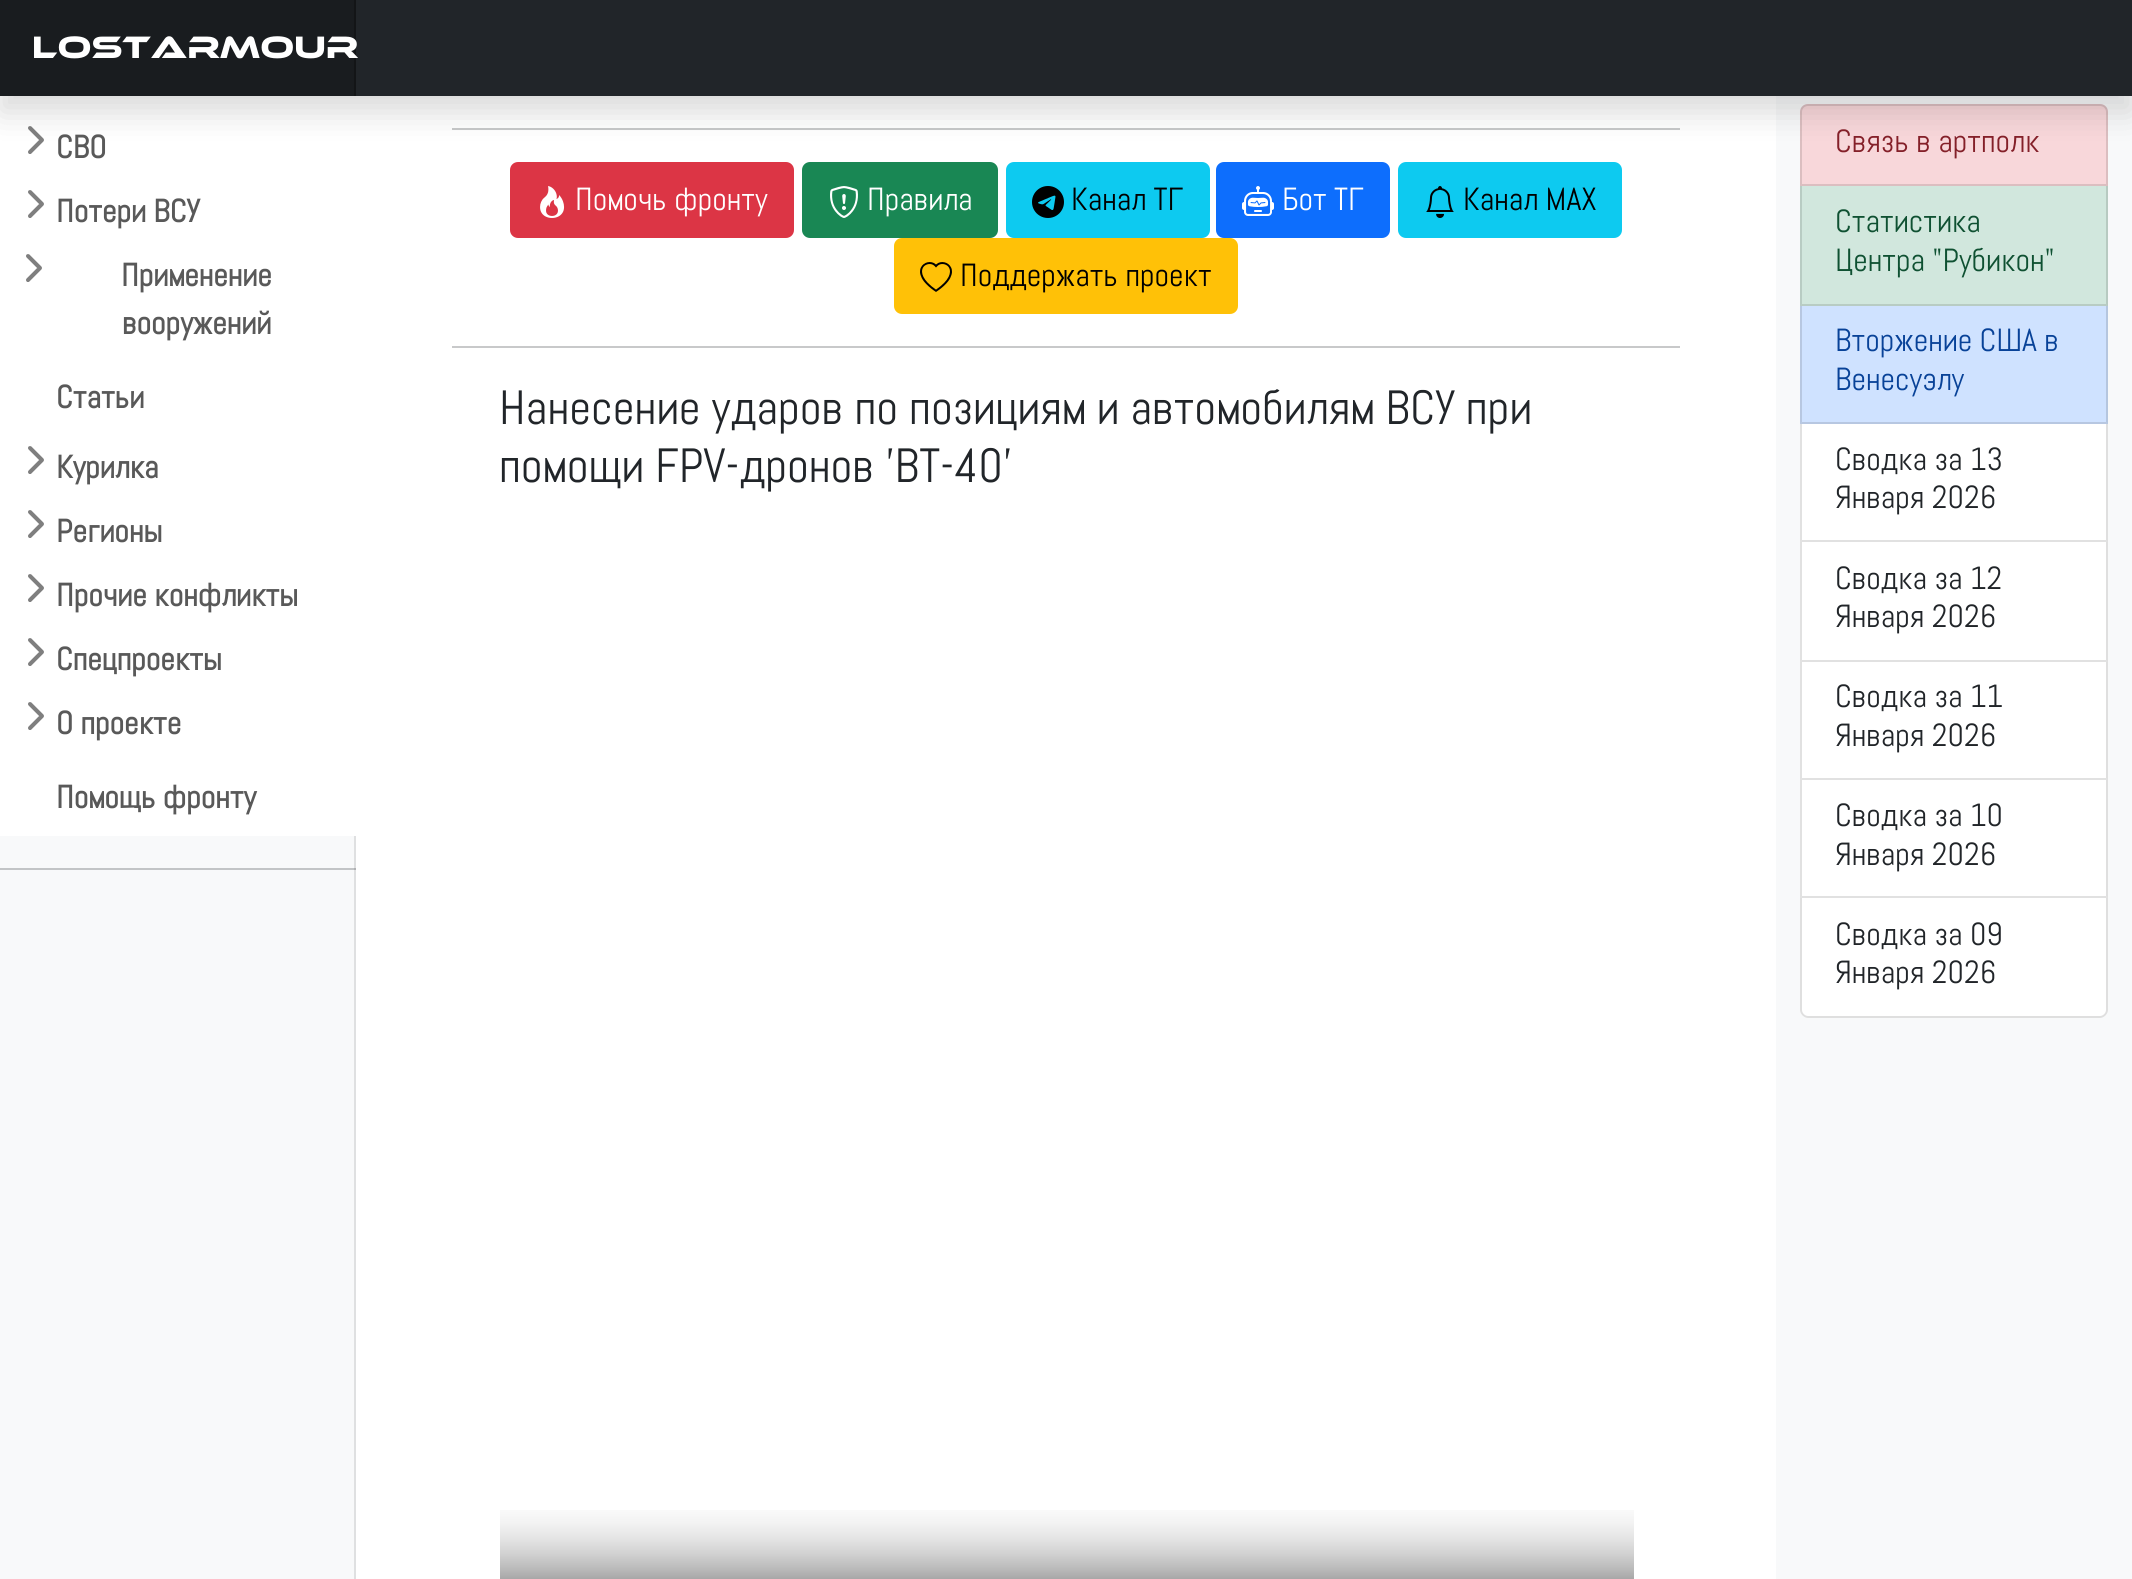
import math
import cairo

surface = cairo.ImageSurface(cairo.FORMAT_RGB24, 2132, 1579)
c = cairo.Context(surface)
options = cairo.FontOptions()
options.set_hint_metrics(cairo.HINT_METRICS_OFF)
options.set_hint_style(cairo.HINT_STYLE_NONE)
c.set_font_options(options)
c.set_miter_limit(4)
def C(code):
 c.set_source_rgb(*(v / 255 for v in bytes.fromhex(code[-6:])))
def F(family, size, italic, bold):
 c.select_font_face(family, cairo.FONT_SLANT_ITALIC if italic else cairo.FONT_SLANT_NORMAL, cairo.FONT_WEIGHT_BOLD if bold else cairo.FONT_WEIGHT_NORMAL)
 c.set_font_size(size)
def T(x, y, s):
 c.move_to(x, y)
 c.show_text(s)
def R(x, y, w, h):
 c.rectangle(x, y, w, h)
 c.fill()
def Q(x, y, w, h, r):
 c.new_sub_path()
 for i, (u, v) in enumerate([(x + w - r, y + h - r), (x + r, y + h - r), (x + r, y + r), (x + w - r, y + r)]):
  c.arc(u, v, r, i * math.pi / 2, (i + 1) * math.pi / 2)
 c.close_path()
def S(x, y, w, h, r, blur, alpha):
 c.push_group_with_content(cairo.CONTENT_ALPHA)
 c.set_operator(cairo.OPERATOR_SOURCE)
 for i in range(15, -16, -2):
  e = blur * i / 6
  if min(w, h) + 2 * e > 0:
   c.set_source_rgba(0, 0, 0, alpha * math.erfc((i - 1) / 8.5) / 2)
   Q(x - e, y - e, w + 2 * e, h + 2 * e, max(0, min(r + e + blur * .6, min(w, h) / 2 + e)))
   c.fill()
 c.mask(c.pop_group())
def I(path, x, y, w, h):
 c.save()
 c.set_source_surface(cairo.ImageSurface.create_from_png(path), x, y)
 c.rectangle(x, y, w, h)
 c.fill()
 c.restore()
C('ffffff')
c.paint()
I('1.png',28,126,16,28)
C('c8c9ca')
R(452,128,1228,2)
C('f8f9fa')
R(1776,96,356,1483)
C('f8d7da')
c.new_path()
c.move_to(1808,104)
c.line_to(2100,104)
c.curve_to(2104.5,104,2108,107.5,2108,112)
c.line_to(2108,186)
c.line_to(1800,186)
c.line_to(1800,112)
c.curve_to(1800,107.5,1803.5,104,1808,104)
c.close_path()
c.fill()
c.new_path()
c.move_to(1808,105)
c.line_to(2100,105)
c.curve_to(2104,105,2107,108,2107,112)
c.line_to(2107,185)
c.line_to(1801,185)
c.line_to(1801,112)
c.curve_to(1801,108,1804,105,1808,105)
c.close_path()
c.set_source_rgba(0,0,0,0.12)
c.stroke()
C('000000')
S(0,16,2132,96,0,16,.15)
C('212529')
R(356,0,1776,96)
C('191c1f')
R(0,0,354,96)
C('131517')
R(354,0,2,96)
F('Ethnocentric',32,0,0)
C('ffffff')
T(32,58,'LOSTARMOUR')
C('f8f9fa')
R(0,836,354,743)
C('c2c4c6')
R(0,868,356,2)
C('dfe0e1')
R(354,836,2,743)
C('b0b1b3')
R(354,868,2,2)
F('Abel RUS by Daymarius',32,0,1)
C('595959')
T(56,158,'СВО')
I('1.png',28,190,16,28)
T(56,222,'Потери ВСУ')
I('1.png',26,254,16,28)
T(121,286,'Применение')
T(122,334,'вооружений')
T(56,408,'Статьи')
I('1.png',28,446,16,28)
T(56,478,'Курилка')
I('1.png',28,510,16,28)
T(56,542,'Регионы')
I('1.png',28,574,16,28)
T(56,606,'Прочие конфликты')
I('1.png',28,638,16,28)
T(56,670,'Спецпроекты')
I('1.png',28,702,16,28)
T(56,734,'О проекте')
T(56,808,'Помощь фронту')
C('dc3545')
Q(511,163,282,74,7)
c.fill_preserve()
c.stroke()
I('2.png',540,186,25,32)
F('Abel RUS by Daymarius',32,0,0)
C('ffffff')
T(575,210,'Помочь фронту')
C('198754')
Q(803,163,194,74,7)
c.fill_preserve()
c.stroke()
I('3.png',830,186,28,32)
C('ffffff')
T(867,210,'Правила')
C('0dcaf0')
Q(1007,163,202,74,7)
c.fill_preserve()
c.stroke()
I('4.png',1032,186,32,32)
C('000000')
T(1071,210,'Канал ТГ')
C('0d6efd')
Q(1217,163,172,74,7)
c.fill_preserve()
c.stroke()
I('5.png',1242,186,32,30)
C('ffffff')
T(1282,210,'Бот ТГ')
C('0dcaf0')
Q(1399,163,222,74,7)
c.fill_preserve()
c.stroke()
I('6.png',1426,186,28,32)
C('000000')
T(1463,210,'Канал MAX')
C('ffc107')
Q(895,239,342,74,7)
c.fill_preserve()
c.stroke()
I('7.png',920,262,32,30)
C('000000')
T(960,286,'Поддержать проект')
C('c8c9ca')
R(452,346,1228,2)
F('Abel RUS by Daymarius',48,0,0)
C('212529')
T(499,424,'Нанесение ударов по позициям и автомобилям ВСУ при')
T(499,482,'помощи FPV-дронов \'ВТ-40\'')
I('8.png',500,1510,1134,69)
F('Abel RUS by Daymarius',32,0,0)
C('842029')
T(1835,152,'Связь в артполк')
C('d1e7dd')
R(1800,186,308,120)
C('b7cac1')
c.new_path()
c.move_to(2108,186)
c.line_to(2108,306)
c.line_to(2106,304)
c.line_to(2106,186)
c.close_path()
c.fill()
c.set_source_rgba(0,0,0,0.12)
c.new_path()
c.move_to(2108,306)
c.line_to(1800,306)
c.line_to(1802,304)
c.line_to(2106,304)
c.close_path()
c.fill()
c.new_path()
c.move_to(1800,306)
c.line_to(1800,186)
c.line_to(1802,186)
c.line_to(1802,304)
c.close_path()
c.fill()
C('0f5132')
T(1835,232,'Статистика')
T(1835,271,'Центра "Рубикон"')
C('cfe2ff')
R(1800,306,308,118)
C('b5c6df')
c.new_path()
c.move_to(2108,306)
c.line_to(2108,424)
c.line_to(2106,422)
c.line_to(2106,306)
c.close_path()
c.fill()
c.set_source_rgba(0,0,0,0.12)
c.new_path()
c.move_to(2108,424)
c.line_to(1800,424)
c.line_to(1802,422)
c.line_to(2106,422)
c.close_path()
c.fill()
c.new_path()
c.move_to(1800,424)
c.line_to(1800,306)
c.line_to(1802,306)
c.line_to(1802,422)
c.close_path()
c.fill()
C('084298')
T(1835,351,'Вторжение США в')
T(1835,390,'Венесуэлу')
C('ffffff')
R(1800,424,308,474)
C('dfdfdf')
c.new_path()
c.move_to(2108,424)
c.line_to(2108,542)
c.line_to(2106,540)
c.line_to(2106,424)
c.close_path()
c.fill()
c.set_source_rgba(0,0,0,0.12)
c.new_path()
c.move_to(2108,542)
c.line_to(1800,542)
c.line_to(1802,540)
c.line_to(2106,540)
c.close_path()
c.fill()
c.new_path()
c.move_to(1800,542)
c.line_to(1800,424)
c.line_to(1802,424)
c.line_to(1802,540)
c.close_path()
c.fill()
C('212529')
T(1835,470,'Сводка за 13')
T(1835,508,'Января 2026')
C('dfdfdf')
c.new_path()
c.move_to(2108,542)
c.line_to(2108,662)
c.line_to(2106,660)
c.line_to(2106,542)
c.close_path()
c.fill()
c.set_source_rgba(0,0,0,0.12)
c.new_path()
c.move_to(2108,662)
c.line_to(1800,662)
c.line_to(1802,660)
c.line_to(2106,660)
c.close_path()
c.fill()
c.new_path()
c.move_to(1800,662)
c.line_to(1800,542)
c.line_to(1802,542)
c.line_to(1802,660)
c.close_path()
c.fill()
C('212529')
T(1835,589,'Сводка за 12')
T(1835,627,'Января 2026')
C('dfdfdf')
c.new_path()
c.move_to(2108,662)
c.line_to(2108,780)
c.line_to(2106,778)
c.line_to(2106,662)
c.close_path()
c.fill()
c.set_source_rgba(0,0,0,0.12)
c.new_path()
c.move_to(2108,780)
c.line_to(1800,780)
c.line_to(1802,778)
c.line_to(2106,778)
c.close_path()
c.fill()
c.new_path()
c.move_to(1800,780)
c.line_to(1800,662)
c.line_to(1802,662)
c.line_to(1802,778)
c.close_path()
c.fill()
C('212529')
T(1835,707,'Сводка за 11')
T(1835,746,'Января 2026')
C('dfdfdf')
c.new_path()
c.move_to(2108,780)
c.line_to(2108,898)
c.line_to(2106,896)
c.line_to(2106,780)
c.close_path()
c.fill()
c.set_source_rgba(0,0,0,0.12)
c.new_path()
c.move_to(2108,898)
c.line_to(1800,898)
c.line_to(1802,896)
c.line_to(2106,896)
c.close_path()
c.fill()
c.new_path()
c.move_to(1800,898)
c.line_to(1800,780)
c.line_to(1802,780)
c.line_to(1802,896)
c.close_path()
c.fill()
C('212529')
T(1835,826,'Сводка за 10')
T(1835,865,'Января 2026')
C('ffffff')
c.new_path()
c.move_to(1800,898)
c.line_to(2108,898)
c.line_to(2108,1010)
c.curve_to(2108,1014.5,2104.5,1018,2100,1018)
c.line_to(1808,1018)
c.curve_to(1803.5,1018,1800,1014.5,1800,1010)
c.close_path()
c.fill()
C('dfdfdf')
c.set_fill_rule(cairo.FILL_RULE_EVEN_ODD)
c.new_path()
c.move_to(1800,898)
c.line_to(2108,898)
c.line_to(2108,1010)
c.curve_to(2108,1014,2104,1018,2100,1018)
c.line_to(1808,1018)
c.curve_to(1804,1018,1800,1014,1800,1010)
c.close_path()
c.move_to(1802,898)
c.line_to(2106,898)
c.line_to(2106,1010)
c.curve_to(2106,1013,2103,1016,2100,1016)
c.line_to(1808,1016)
c.curve_to(1805,1016,1802,1013,1802,1010)
c.close_path()
c.fill()
C('212529')
T(1835,945,'Сводка за 09')
T(1835,983,'Января 2026')
surface.write_to_png('o.png')
